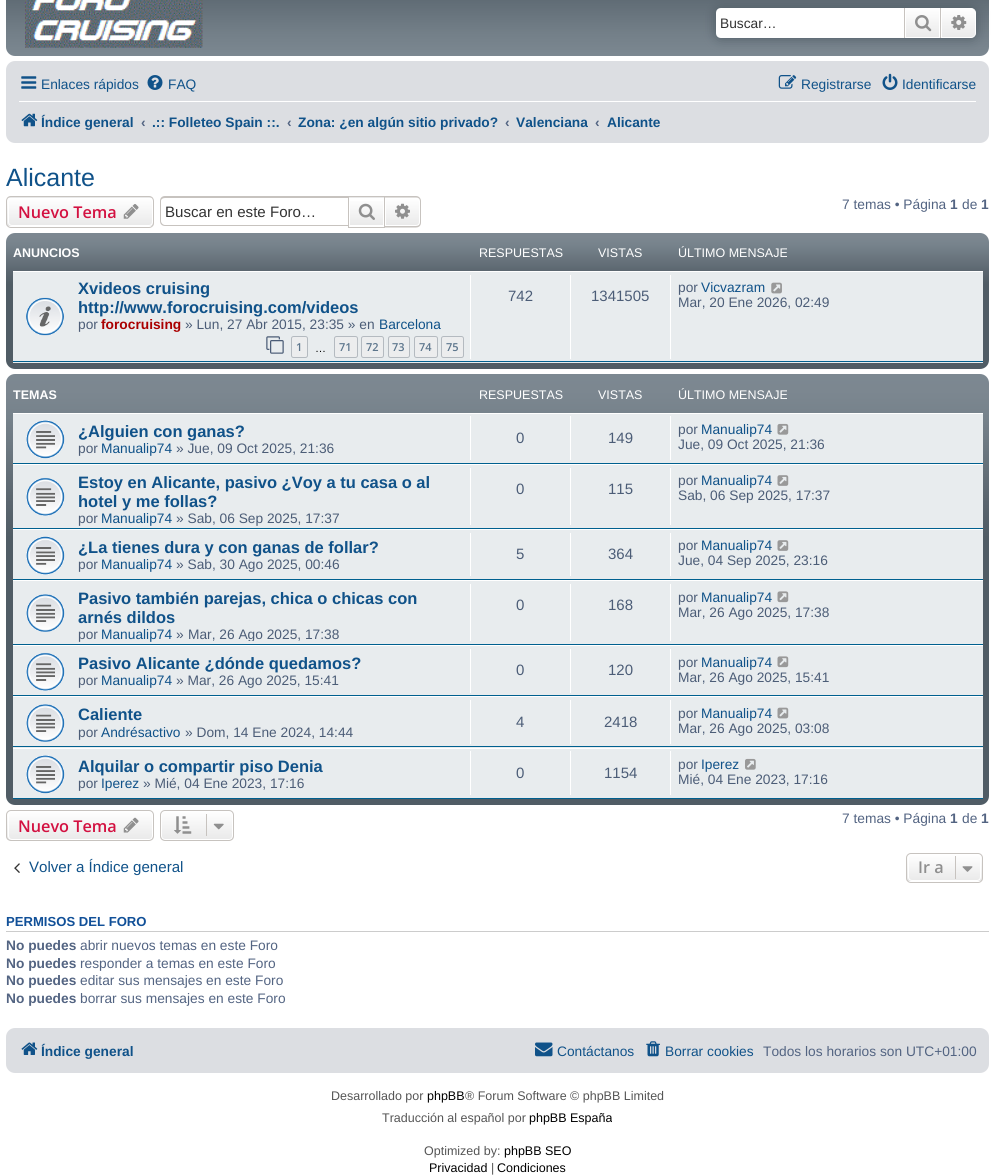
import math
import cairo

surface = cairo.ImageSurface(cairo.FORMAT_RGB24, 994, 1176)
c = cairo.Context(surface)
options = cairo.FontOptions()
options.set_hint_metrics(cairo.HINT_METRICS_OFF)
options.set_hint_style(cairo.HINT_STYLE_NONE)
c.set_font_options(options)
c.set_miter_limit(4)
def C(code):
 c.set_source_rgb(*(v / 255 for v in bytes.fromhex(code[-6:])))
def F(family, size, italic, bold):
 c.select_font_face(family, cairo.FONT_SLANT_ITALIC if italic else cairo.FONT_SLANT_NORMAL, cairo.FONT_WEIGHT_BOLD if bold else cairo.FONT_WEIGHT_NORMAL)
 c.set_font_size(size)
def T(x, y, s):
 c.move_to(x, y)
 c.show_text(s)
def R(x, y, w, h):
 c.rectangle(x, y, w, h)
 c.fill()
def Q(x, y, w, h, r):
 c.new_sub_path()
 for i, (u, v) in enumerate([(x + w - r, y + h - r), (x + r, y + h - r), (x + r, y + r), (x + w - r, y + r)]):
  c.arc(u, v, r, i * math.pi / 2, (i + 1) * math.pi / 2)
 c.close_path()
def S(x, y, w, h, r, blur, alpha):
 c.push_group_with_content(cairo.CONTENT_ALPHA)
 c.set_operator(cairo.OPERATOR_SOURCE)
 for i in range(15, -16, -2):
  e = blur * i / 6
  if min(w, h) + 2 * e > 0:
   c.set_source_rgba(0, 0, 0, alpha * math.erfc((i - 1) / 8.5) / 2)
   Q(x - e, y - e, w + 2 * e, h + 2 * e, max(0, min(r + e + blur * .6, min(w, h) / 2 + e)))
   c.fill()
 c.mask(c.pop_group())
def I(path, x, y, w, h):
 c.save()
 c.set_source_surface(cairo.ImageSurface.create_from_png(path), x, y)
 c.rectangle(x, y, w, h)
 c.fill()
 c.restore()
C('ffffff')
c.paint()
gradient = cairo.LinearGradient(498,-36,498,56)
gradient.add_color_stop_rgba(0,0.431,0.467,0.498,1)
gradient.add_color_stop_rgba(.01,0.314,0.361,0.396,1)
gradient.add_color_stop_rgba(.2,0.337,0.384,0.42,1)
gradient.add_color_stop_rgba(.75,0.451,0.498,0.533,1)
gradient.add_color_stop_rgba(1,0.486,0.533,0.569,1)
c.set_source(gradient)
Q(6,-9,983,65,9)
c.fill()
I('1.png',25,0,178,48)
C('505c65')
S(716,8,260,30,5,6,1)
C('ffffff')
c.new_path()
c.move_to(721,8)
c.line_to(904,8)
c.line_to(904,38)
c.line_to(721,38)
c.curve_to(718,38,716,36,716,33)
c.line_to(716,13)
c.curve_to(716,10,718,8,721,8)
c.close_path()
c.fill()
F('Liberation Sans',13.75,0,0)
C('333333')
T(720,28,'Buscar…')
gradient = cairo.LinearGradient(923,7.5,923,38)
gradient.add_color_stop_rgba(0,1,1,1,1)
gradient.add_color_stop_rgba(1,0.914,0.914,0.914,1)
c.set_source(gradient)
R(906,9,33,28)
c.rectangle(905.5,8.5,34,29)
C('ffffff')
c.set_line_width(1)
c.stroke()
C('c7c3bf')
R(940,8,1,30)
R(904,8,1,30)
I('2.png',915,15,17,17)
gradient = cairo.LinearGradient(959,7.5,959,38)
gradient.add_color_stop_rgba(0,1,1,1,1)
gradient.add_color_stop_rgba(1,0.914,0.914,0.914,1)
c.set_source(gradient)
c.new_path()
c.move_to(941.5,8.5)
c.line_to(971,8.5)
c.curve_to(973.5,8.5,975.5,10.5,975.5,13)
c.line_to(975.5,33)
c.curve_to(975.5,35.5,973.5,37.5,971,37.5)
c.line_to(941.5,37.5)
c.close_path()
c.fill_preserve()
C('ffffff')
c.stroke()
I('3.png',951,15,16,15)
C('dcdee2')
Q(6,61,983,82,9)
c.fill()
I('4.png',21,76,16,13)
C('105289')
T(41,89,'Enlaces rápidos')
I('5.png',147,75,16,15)
T(168,89,'FAQ')
I('6.png',778,75,19,14)
T(801,89,'Registrarse')
I('7.png',882,73,16,17)
T(902,89,'Identificarse')
C('ffffff')
R(19,101,957,1)
I('8.png',21,113,17,14)
F('Liberation Sans',13.75,0,1)
C('105289')
T(41,127,'Índice general')
C('536482')
T(141,127,'‹')
C('105289')
T(152,127,'.:: Folleteo Spain ::.')
C('536482')
T(287,127,'‹')
C('105289')
T(298,127,'Zona: ¿en algún sitio privado?')
C('536482')
T(505,127,'‹')
C('105289')
T(516,127,'Valenciana')
C('536482')
T(595,127,'‹')
C('105289')
T(607,127,'Alicante')
F('Liberation Sans',25,0,0)
T(6,186,'Alicante')
c.save()
Q(6,196,148,32,5)
c.clip()
gradient = cairo.LinearGradient(80,169,80,198)
gradient.add_color_stop_rgba(0,1,1,1,1)
gradient.add_color_stop_rgba(1,0.914,0.914,0.914,1)
c.set_source(gradient)
R(6,196,148,2)
gradient = cairo.LinearGradient(80,198,80,226)
gradient.add_color_stop_rgba(0,1,1,1,1)
gradient.add_color_stop_rgba(1,0.914,0.914,0.914,1)
c.set_source(gradient)
R(6,198,148,28)
c.restore()
Q(8.5,198.5,144,27,3.5)
C('ffffff')
c.stroke()
Q(6.5,196.5,147,31,4.5)
C('c7c3bf')
c.stroke()
F('Open Sans SemiBold',16.25,0,0)
C('d31141')
T(18,218,'Nuevo Tema')
I('9.png',123,204,16,15)
C('c7c3bf')
c.set_fill_rule(cairo.FILL_RULE_EVEN_ODD)
c.new_path()
c.move_to(165,196)
c.line_to(348,196)
c.line_to(348,226)
c.line_to(165,226)
c.curve_to(162,226,160,224,160,221)
c.line_to(160,201)
c.curve_to(160,198,162,196,165,196)
c.close_path()
c.move_to(165,198)
c.line_to(348,198)
c.line_to(348,225)
c.line_to(165,225)
c.curve_to(163,225,161,223,161,221)
c.line_to(161,201)
c.curve_to(161,199,163,198,165,198)
c.close_path()
c.fill()
F('Liberation Sans',15.1,0,0)
C('333333')
T(165,217,'Buscar en este Foro…')
C('e9e9e9')
R(349,197,35,1)
gradient = cairo.LinearGradient(366,198,366,226)
gradient.add_color_stop_rgba(0,1,1,1,1)
gradient.add_color_stop_rgba(1,0.914,0.914,0.914,1)
c.set_source(gradient)
R(350,201,33,24)
c.rectangle(348.5,196.5,36,31)
C('c7c3bf')
c.stroke()
I('10.png',358,203,17,17)
gradient = cairo.LinearGradient(403,198,403,226)
gradient.add_color_stop_rgba(0,1,1,1,1)
gradient.add_color_stop_rgba(1,0.914,0.914,0.914,1)
c.set_source(gradient)
c.new_path()
c.move_to(385.5,198.5)
c.line_to(416,198.5)
c.curve_to(418,198.5,419.5,200,419.5,202)
c.line_to(419.5,222)
c.curve_to(419.5,224,418,225.5,416,225.5)
c.line_to(385.5,225.5)
c.close_path()
c.fill_preserve()
C('ffffff')
c.stroke()
C('c7c3bf')
c.new_path()
c.move_to(385,196)
c.line_to(416,196)
c.curve_to(419,196,421,198.5,421,201)
c.line_to(421,222.5)
c.curve_to(421,225.5,419,227.5,416,227.5)
c.line_to(385,227.5)
c.close_path()
c.move_to(385,197.5)
c.line_to(416,197.5)
c.curve_to(418.5,197.5,420,199,420,201)
c.line_to(420,222.5)
c.curve_to(420,224.5,418.5,226,416,226)
c.line_to(385,226)
c.close_path()
c.fill()
I('11.png',395,203,15,16)
F('Liberation Sans',13.75,0,0)
C('536482')
T(842,209,'7 temas • Página')
F('Liberation Sans',13.75,0,1)
T(950,209,'1')
F('Liberation Sans',13.75,0,0)
T(962,209,'de')
F('Liberation Sans',13.75,0,1)
T(981,209,'1')
gradient = cairo.LinearGradient(498,232,498,369)
gradient.add_color_stop_rgba(0,0.486,0.533,0.569,1)
gradient.add_color_stop_rgba(.04,0.486,0.529,0.565,1)
gradient.add_color_stop_rgba(.1,0.463,0.51,0.545,1)
gradient.add_color_stop_rgba(.29,0.357,0.4,0.435,1)
gradient.add_color_stop_rgba(.38,0.314,0.361,0.396,1)
gradient.add_color_stop_rgba(1,0.314,0.361,0.396,1)
c.set_source(gradient)
Q(6,233,983,136,9)
c.fill()
F('Liberation Sans',12.5,0,1)
C('ffffff')
T(13,257,'ANUNCIOS')
F('Liberation Sans',12.5,0,0)
T(479,257,'RESPUESTAS')
T(598,257,'VISTAS')
T(678,257,'ÚLTIMO MENSAJE')
C('e8ecee')
R(13,272,970,91)
C('ffffff')
R(13,271,970,1)
C('00608f')
R(13,361,970,1)
I('12.png',26,297,38,39)
F('Liberation Sans',16.5,0,1)
C('105289')
T(78,294,'Xvideos cruising')
T(78,313,'http://www.forocruising.com/videos')
F('Liberation Sans',13.75,0,0)
C('4c5d77')
T(78,329,'por')
F('Liberation Sans',13.75,0,1)
C('aa0000')
T(101,329,'forocruising')
F('Liberation Sans',13.75,0,0)
C('4c5d77')
T(185,329,'» Lun, 27 Abr 2015, 23:35 » en')
C('105289')
T(379,329,'Barcelona')
I('13.png',266,336,18,18)
C('ecedee')
Q(291.5,336.5,16,21,2)
c.fill_preserve()
C('b4bac0')
c.stroke()
F('Open Sans SemiBold',11,0,0)
C('5c758c')
T(296,351,'1')
F('Liberation Sans',11,0,0)
C('000000')
T(315,352,'…')
C('ecedee')
Q(334.5,336.5,23,21,2)
c.fill_preserve()
C('b4bac0')
c.stroke()
F('Open Sans SemiBold',11,0,0)
C('5c758c')
T(339,351,'71')
C('ecedee')
Q(361.5,336.5,22,21,2)
c.fill_preserve()
C('b4bac0')
c.stroke()
C('5c758c')
T(366,351,'72')
C('ecedee')
Q(388.5,336.5,21,21,2)
c.fill_preserve()
C('b4bac0')
c.stroke()
C('5c758c')
T(392,351,'73')
C('ecedee')
Q(414.5,336.5,23,21,2)
c.fill_preserve()
C('b4bac0')
c.stroke()
C('5c758c')
T(419,351,'74')
C('ecedee')
Q(441.5,336.5,22,21,2)
c.fill_preserve()
C('b4bac0')
c.stroke()
C('5c758c')
T(446,351,'75')
C('ffffff')
R(470,275,1,84)
F('Liberation Sans',15,0,0)
C('4c5d77')
T(508,301,'742')
C('ffffff')
R(570,275,1,84)
C('4c5d77')
T(591,301,'1341505')
C('ffffff')
R(670,275,1,84)
F('Liberation Sans',13.75,0,0)
C('4c5d77')
T(678,292,'por')
C('105289')
T(701,292,'Vicvazram')
I('14.png',771,282,11,12)
C('4c5d77')
T(678,307,'Mar, 20 Ene 2026, 02:49')
gradient = cairo.LinearGradient(498,374,498,805)
gradient.add_color_stop_rgba(0,0.486,0.533,0.569,1)
gradient.add_color_stop_rgba(.04,0.486,0.529,0.565,1)
gradient.add_color_stop_rgba(.1,0.463,0.51,0.545,1)
gradient.add_color_stop_rgba(.29,0.357,0.4,0.435,1)
gradient.add_color_stop_rgba(.38,0.314,0.361,0.396,1)
gradient.add_color_stop_rgba(1,0.314,0.361,0.396,1)
c.set_source(gradient)
Q(6,374,983,431,9)
c.fill()
F('Liberation Sans',12.5,0,1)
C('ffffff')
T(13,399,'TEMAS')
F('Liberation Sans',12.5,0,0)
T(479,399,'RESPUESTAS')
T(598,399,'VISTAS')
T(678,399,'ÚLTIMO MENSAJE')
C('e8ecee')
R(13,414,970,49)
C('ffffff')
R(13,413,970,1)
C('00608f')
R(13,463,970,1)
I('15.png',26,420,39,39)
F('Liberation Sans',16.5,0,1)
C('105289')
T(78,437,'¿Alguien con ganas?')
F('Liberation Sans',13.75,0,0)
C('4c5d77')
T(78,453,'por')
C('105289')
T(101,453,'Manualip74')
C('4c5d77')
T(176,453,'» Jue, 09 Oct 2025, 21:36')
C('ffffff')
R(470,416,1,44)
F('Liberation Sans',15,0,0)
C('4c5d77')
T(516,443,'0')
C('ffffff')
R(570,416,1,44)
C('4c5d77')
T(608,443,'149')
C('ffffff')
R(670,416,1,44)
F('Liberation Sans',13.75,0,0)
C('4c5d77')
T(678,434,'por')
C('105289')
T(701,434,'Manualip74')
I('16.png',777,423,12,12)
C('4c5d77')
T(678,449,'Jue, 09 Oct 2025, 21:36')
C('e8ecee')
R(13,465,970,63)
C('ffffff')
R(13,464,970,1)
C('00608f')
R(13,528,970,1)
I('17.png',26,477,39,39)
F('Liberation Sans',16.5,0,1)
C('105289')
T(78,488,'Estoy en Alicante, pasivo ¿Voy a tu casa o al')
T(78,507,'hotel y me follas?')
F('Liberation Sans',13.75,0,0)
C('4c5d77')
T(78,523,'por')
C('105289')
T(101,523,'Manualip74')
C('4c5d77')
T(176,523,'» Sab, 06 Sep 2025, 17:37')
C('ffffff')
R(470,468,1,57)
F('Liberation Sans',15,0,0)
C('4c5d77')
T(516,494,'0')
C('ffffff')
R(570,468,1,57)
C('4c5d77')
T(608,494,'115')
C('ffffff')
R(670,468,1,57)
F('Liberation Sans',13.75,0,0)
C('4c5d77')
T(678,485,'por')
C('105289')
T(701,485,'Manualip74')
I('18.png',777,475,12,11)
C('4c5d77')
T(678,500,'Sab, 06 Sep 2025, 17:37')
C('e8ecee')
R(13,530,970,49)
C('ffffff')
R(13,529,970,1)
C('00608f')
R(13,579,970,1)
I('19.png',26,536,39,39)
F('Liberation Sans',16.5,0,1)
C('105289')
T(78,553,'¿La tienes dura y con ganas de follar?')
F('Liberation Sans',13.75,0,0)
C('4c5d77')
T(78,569,'por')
C('105289')
T(101,569,'Manualip74')
C('4c5d77')
T(176,569,'» Sab, 30 Ago 2025, 00:46')
C('ffffff')
R(470,533,1,43)
F('Liberation Sans',15,0,0)
C('4c5d77')
T(516,559,'5')
C('ffffff')
R(570,533,1,43)
C('4c5d77')
T(608,559,'364')
C('ffffff')
R(670,533,1,43)
F('Liberation Sans',13.75,0,0)
C('4c5d77')
T(678,550,'por')
C('105289')
T(701,550,'Manualip74')
I('18.png',777,540,12,11)
C('4c5d77')
T(678,565,'Jue, 04 Sep 2025, 23:16')
C('e8ecee')
R(13,581,970,63)
C('ffffff')
R(13,580,970,1)
C('00608f')
R(13,644,970,1)
I('20.png',26,594,39,38)
F('Liberation Sans',16.5,0,1)
C('105289')
T(78,604,'Pasivo también parejas, chica o chicas con')
T(78,623,'arnés dildos')
F('Liberation Sans',13.75,0,0)
C('4c5d77')
T(78,639,'por')
C('105289')
T(101,639,'Manualip74')
C('4c5d77')
T(176,639,'»')
c.save()
c.set_fill_rule(cairo.FILL_RULE_WINDING)
c.rectangle(13,584,970,57)
c.clip()
T(188,639,'Mar, 26 Ago 2025, 17:38')
c.restore()
C('ffffff')
R(470,584,1,57)
F('Liberation Sans',15,0,0)
C('4c5d77')
T(516,610,'0')
C('ffffff')
R(570,584,1,57)
C('4c5d77')
T(608,610,'168')
C('ffffff')
R(670,584,1,57)
F('Liberation Sans',13.75,0,0)
C('4c5d77')
T(678,602,'por')
C('105289')
T(701,602,'Manualip74')
I('21.png',777,591,12,12)
C('4c5d77')
T(678,617,'Mar, 26 Ago 2025, 17:38')
C('e8ecee')
R(13,646,970,49)
C('ffffff')
R(13,645,970,1)
C('00608f')
R(13,695,970,1)
I('17.png',26,652,39,39)
F('Liberation Sans',16.5,0,1)
C('105289')
T(78,669,'Pasivo Alicante ¿dónde quedamos?')
F('Liberation Sans',13.75,0,0)
C('4c5d77')
T(78,685,'por')
C('105289')
T(101,685,'Manualip74')
C('4c5d77')
T(176,685,'» Mar, 26 Ago 2025, 15:41')
C('ffffff')
R(470,649,1,44)
F('Liberation Sans',15,0,0)
C('4c5d77')
T(516,675,'0')
C('ffffff')
R(570,649,1,44)
C('4c5d77')
T(608,675,'120')
C('ffffff')
R(670,649,1,44)
F('Liberation Sans',13.75,0,0)
C('4c5d77')
T(678,667,'por')
C('105289')
T(701,667,'Manualip74')
I('21.png',777,656,12,12)
C('4c5d77')
T(678,682,'Mar, 26 Ago 2025, 15:41')
C('e8ecee')
R(13,697,970,51)
C('ffffff')
R(13,696,970,1)
C('00608f')
R(13,746,970,1)
I('20.png',26,704,39,38)
F('Liberation Sans',16.5,0,1)
C('105289')
T(78,720,'Caliente')
F('Liberation Sans',13.75,0,0)
C('4c5d77')
T(78,737,'por')
C('105289')
T(101,737,'Andrésactivo')
C('4c5d77')
T(185,737,'» Dom, 14 Ene 2024, 14:44')
C('ffffff')
R(470,700,1,44)
F('Liberation Sans',15,0,0)
C('4c5d77')
T(516,727,'4')
C('ffffff')
R(570,700,1,44)
C('4c5d77')
T(604,727,'2418')
C('ffffff')
R(670,700,1,44)
F('Liberation Sans',13.75,0,0)
C('4c5d77')
T(678,718,'por')
C('105289')
T(701,718,'Manualip74')
I('22.png',777,707,12,12)
C('4c5d77')
T(678,733,'Mar, 26 Ago 2025, 03:08')
C('e8ecee')
R(13,749,970,49)
C('ffffff')
R(13,748,970,1)
C('00608f')
R(13,798,970,1)
I('15.png',26,755,39,39)
F('Liberation Sans',16.5,0,1)
C('105289')
T(78,772,'Alquilar o compartir piso Denia')
F('Liberation Sans',13.75,0,0)
C('4c5d77')
T(78,788,'por')
C('105289')
T(101,788,'Iperez')
C('4c5d77')
T(143,788,'» Mié, 04 Ene 2023, 17:16')
C('ffffff')
R(470,751,1,44)
F('Liberation Sans',15,0,0)
C('4c5d77')
T(516,778,'0')
C('ffffff')
R(570,751,1,44)
C('4c5d77')
T(604,778,'1154')
C('ffffff')
R(670,751,1,44)
F('Liberation Sans',13.75,0,0)
C('4c5d77')
T(678,769,'por')
C('105289')
T(701,769,'Iperez')
I('23.png',745,758,11,12)
C('4c5d77')
T(678,784,'Mié, 04 Ene 2023, 17:16')
c.save()
c.set_fill_rule(cairo.FILL_RULE_WINDING)
Q(6,810,148,31,5)
c.clip()
gradient = cairo.LinearGradient(80,811,80,840)
gradient.add_color_stop_rgba(0,1,1,1,1)
gradient.add_color_stop_rgba(1,0.914,0.914,0.914,1)
c.set_source(gradient)
R(6,811,148,29)
c.restore()
Q(8.5,811.5,144,28,3.5)
C('ffffff')
c.stroke()
Q(6.5,810.5,147,30,4.5)
C('c7c3bf')
c.stroke()
F('Open Sans SemiBold',16.25,0,0)
C('d31141')
T(18,832,'Nuevo Tema')
I('24.png',123,817,16,16)
c.save()
c.set_fill_rule(cairo.FILL_RULE_WINDING)
Q(160,810,74,31,5)
c.clip()
gradient = cairo.LinearGradient(197,811,197,840)
gradient.add_color_stop_rgba(0,1,1,1,1)
gradient.add_color_stop_rgba(1,0.914,0.914,0.914,1)
c.set_source(gradient)
R(160,811,74,29)
c.restore()
Q(161.5,811.5,71,28,3.5)
C('ffffff')
c.stroke()
Q(160.5,810.5,73,30,4.5)
C('c7c3bf')
c.stroke()
I('25.png',174,816,18,18)
R(206,814,1,22)
I('26.png',213,823,11,7)
F('Liberation Sans',13.75,0,0)
C('536482')
T(842,823,'7 temas • Página')
F('Liberation Sans',13.75,0,1)
T(950,823,'1')
F('Liberation Sans',13.75,0,0)
T(962,823,'de')
F('Liberation Sans',13.75,0,1)
T(981,823,'1')
I('27.png',14,863,6,10)
F('Liberation Sans',15.1,0,0)
C('105289')
T(29,872,'Volver a Índice general')
c.save()
c.set_fill_rule(cairo.FILL_RULE_WINDING)
Q(906,853,77,30,5)
c.clip()
gradient = cairo.LinearGradient(944,854,944,881)
gradient.add_color_stop_rgba(0,1,1,1,1)
gradient.add_color_stop_rgba(1,0.914,0.914,0.914,1)
c.set_source(gradient)
R(906,854,77,27)
c.restore()
Q(908.5,854.5,72,26,3.5)
C('ffffff')
c.stroke()
Q(906.5,853.5,76,29,4.5)
C('c7c3bf')
c.stroke()
F('Open Sans SemiBold',16.25,0,0)
C('8f8f8f')
T(918,873,'Ir a')
C('c7c3bf')
R(955,856,1,23)
I('28.png',962,866,11,6)
C('cccccc')
R(6,931,983,1)
F('Liberation Sans',13.1,0,1)
C('115098')
T(6,926,'PERMISOS DEL FORO')
F('Liberation Sans',13.75,0,1)
C('536482')
T(6,950,'No puedes')
F('Liberation Sans',13.75,0,0)
T(80,950,'abrir nuevos temas en este Foro')
F('Liberation Sans',13.75,0,1)
T(6,968,'No puedes')
F('Liberation Sans',13.75,0,0)
T(80,968,'responder a temas en este Foro')
F('Liberation Sans',13.75,0,1)
T(6,985,'No puedes')
F('Liberation Sans',13.75,0,0)
T(80,985,'editar sus mensajes en este Foro')
F('Liberation Sans',13.75,0,1)
T(6,1003,'No puedes')
F('Liberation Sans',13.75,0,0)
T(80,1003,'borrar sus mensajes en este Foro')
C('dcdee2')
Q(6,1028,983,45,9)
c.fill()
I('29.png',21,1042,17,13)
F('Liberation Sans',13.75,0,1)
C('105289')
T(41,1056,'Índice general')
I('30.png',535,1042,18,15)
F('Liberation Sans',13.75,0,0)
T(557,1056,'Contáctanos')
I('31.png',646,1041,14,16)
T(665,1056,'Borrar cookies')
C('536482')
T(763,1056,'Todos los horarios son UTC+01:00')
F('Liberation Sans',12.5,0,0)
C('555555')
T(331,1100,'Desarrollado por')
C('000000')
T(427,1100,'phpBB')
C('555555')
T(465,1100,'® Forum Software © phpBB Limited')
T(382,1122,'Traducción al español por')
C('000000')
T(529,1122,'phpBB España')
C('555555')
T(424,1155,'Optimized by:')
C('000000')
T(504,1155,'phpBB SEO')
T(429,1172,'Privacidad')
C('555555')
T(491,1172,'|')
C('000000')
T(497,1172,'Condiciones')
surface.write_to_png('o.png')
